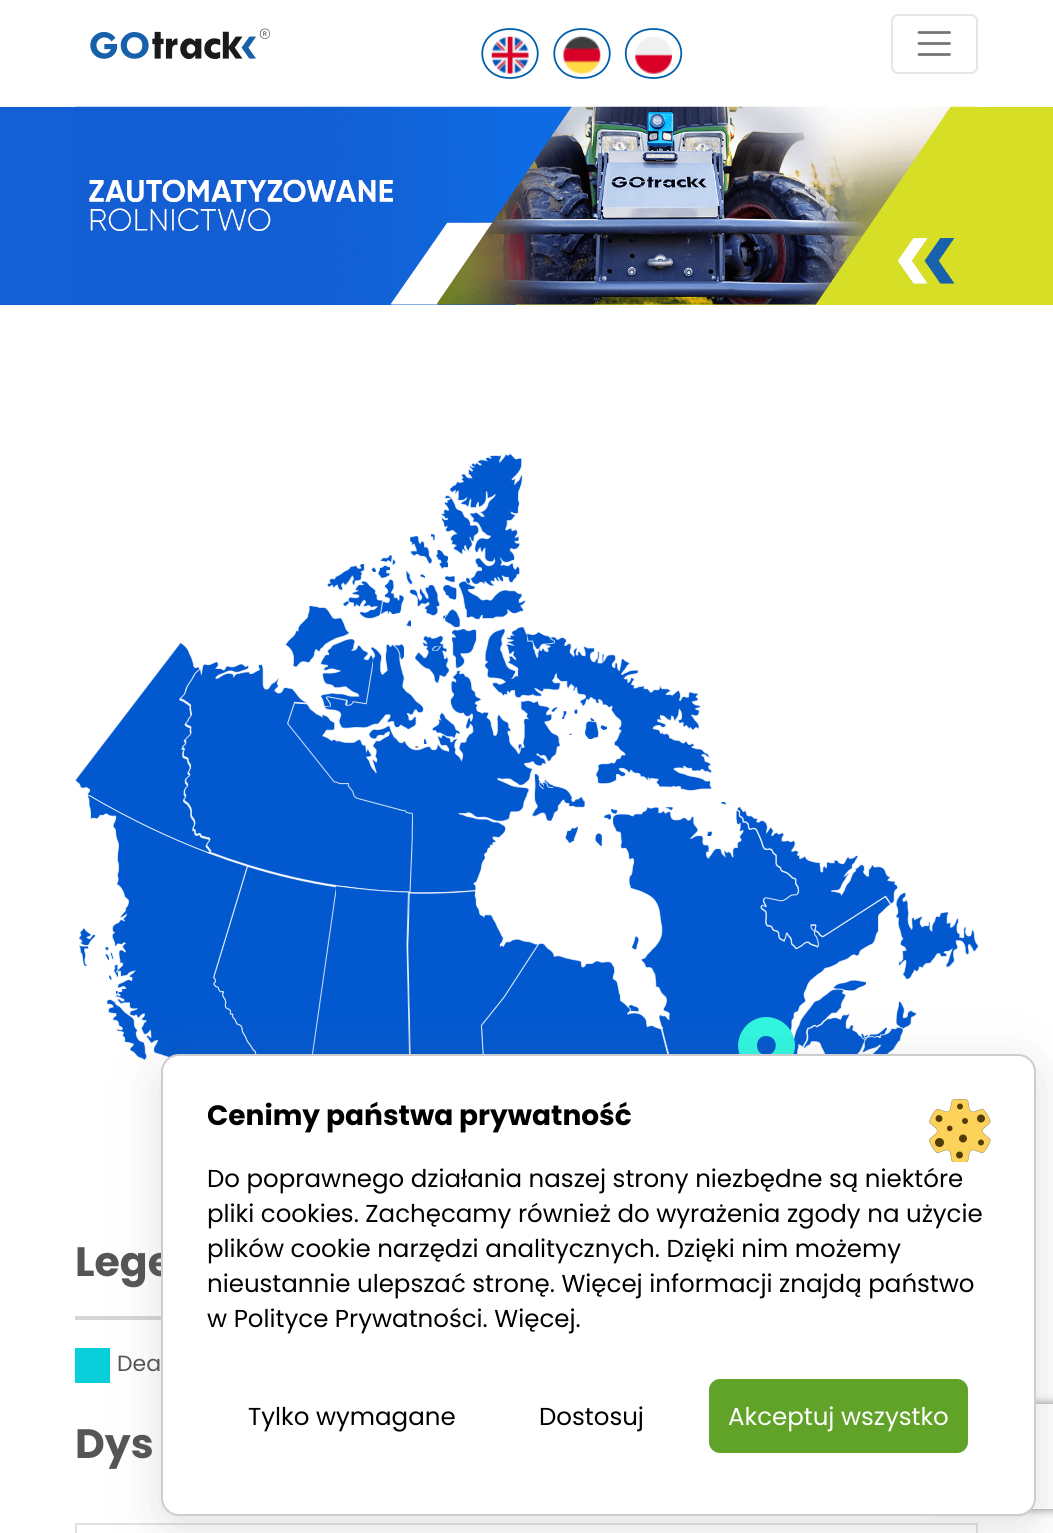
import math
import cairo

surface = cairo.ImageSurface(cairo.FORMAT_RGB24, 1053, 1533)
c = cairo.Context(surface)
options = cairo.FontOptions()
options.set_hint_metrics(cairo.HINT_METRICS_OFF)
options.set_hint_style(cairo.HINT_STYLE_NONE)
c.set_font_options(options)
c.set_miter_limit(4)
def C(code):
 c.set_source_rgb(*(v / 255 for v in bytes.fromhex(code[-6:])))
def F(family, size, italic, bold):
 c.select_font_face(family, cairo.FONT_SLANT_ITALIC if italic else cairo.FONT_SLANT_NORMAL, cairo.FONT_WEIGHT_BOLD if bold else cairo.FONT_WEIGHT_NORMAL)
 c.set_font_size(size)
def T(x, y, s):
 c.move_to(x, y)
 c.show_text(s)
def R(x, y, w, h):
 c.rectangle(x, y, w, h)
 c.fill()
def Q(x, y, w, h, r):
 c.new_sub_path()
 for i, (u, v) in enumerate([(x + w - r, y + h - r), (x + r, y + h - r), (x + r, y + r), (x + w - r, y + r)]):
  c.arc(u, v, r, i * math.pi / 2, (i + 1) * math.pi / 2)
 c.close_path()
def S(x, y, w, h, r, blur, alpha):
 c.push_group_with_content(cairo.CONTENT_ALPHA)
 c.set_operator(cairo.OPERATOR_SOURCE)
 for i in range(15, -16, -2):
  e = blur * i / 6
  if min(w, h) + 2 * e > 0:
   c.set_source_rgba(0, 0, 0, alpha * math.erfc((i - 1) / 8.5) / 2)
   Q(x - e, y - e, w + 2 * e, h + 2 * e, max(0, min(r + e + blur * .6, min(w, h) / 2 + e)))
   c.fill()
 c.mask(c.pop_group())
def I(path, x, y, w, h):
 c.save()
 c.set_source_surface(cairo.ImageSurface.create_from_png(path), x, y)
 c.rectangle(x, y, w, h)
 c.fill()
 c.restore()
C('ffffff')
c.paint()
I('1.png',90,28,181,31)
Q(892,15,85,58,6)
C('e6e6e6')
c.stroke()
c.new_path()
c.move_to(919,32.5)
c.line_to(949.5,32.5)
c.move_to(919,43.5)
c.line_to(949.5,43.5)
c.move_to(919,54.5)
c.line_to(949.5,54.5)
C('737373')
c.set_line_width(2.8)
c.set_line_cap(cairo.LINE_CAP_ROUND)
c.stroke()
c.new_path()
c.move_to(510,29)
c.curve_to(547,29,547,78,510,78)
c.curve_to(473,78,473,29,510,29)
c.close_path()
C('0060ae')
c.set_line_width(1.8)
c.set_line_cap(cairo.LINE_CAP_BUTT)
c.stroke()
I('2.png',491,36,38,38)
c.new_path()
c.move_to(582,29)
c.curve_to(619,29,619,78,582,78)
c.curve_to(545,78,545,29,582,29)
c.close_path()
c.stroke()
I('3.png',563,36,38,38)
c.new_path()
c.move_to(653.5,29)
c.curve_to(690.5,29,690.5,78,653.5,78)
c.curve_to(616.5,78,616.5,29,653.5,29)
c.close_path()
c.stroke()
I('4.png',635,36,37,38)
C('135fd3')
R(0,107,516,198)
C('d6de26')
R(516,107,537,198)
I('5.png',75,106,904,199)
I('12.png',436,550,12,19)
I('9.png',441,495,38,60)
I('21.png',445,576,10,7)
I('29.png',443,614,5,5)
I('28.png',445,609,15,19)
I('25.png',459,581,67,39)
I('22.png',466,578,4,7)
I('24.png',443,585,14,15)
I('6.png',450,453,73,133)
I('7.png',410,536,22,28)
I('8.png',431,534,5,7)
I('10.png',380,555,12,8)
I('11.png',392,558,4,7)
I('13.png',327,564,38,27)
I('14.png',371,567,5,5)
I('15.png',378,565,12,13)
I('16.png',390,572,2,2)
I('17.png',406,571,7,14)
I('19.png',380,579,24,35)
I('26.png',343,599,8,8)
I('18.png',348,581,35,38)
I('20.png',420,574,5,4)
I('23.png',410,585,30,31)
I('35.png',415,635,35,49)
I('38.png',393,644,11,16)
I('37.png',324,644,100,86)
I('27.png',285,606,65,61)
I('30.png',406,620,5,7)
I('31.png',452,628,25,41)
I('43.png',551,707,7,5)
I('44.png',562,711,5,8)
I('45.png',574,709,4,5)
I('46.png',590,718,5,4)
I('48.png',600,725,7,5)
I('49.png',569,733,3,2)
I('52.png',518,744,4,10)
I('53.png',532,774,53,47)
I('54.png',539,782,5,7)
I('55.png',544,781,9,7)
I('32.png',485,627,227,164)
I('42.png',432,712,28,27)
I('50.png',424,739,3,5)
I('51.png',415,746,4,3)
I('41.png',287,670,273,223)
I('34.png',320,639,53,68)
I('40.png',180,662,233,231)
I('33.png',75,642,135,210)
I('36.png',527,632,28,17)
I('39.png',432,646,9,5)
I('47.png',585,721,14,18)
I('66.png',79,928,17,17)
I('59.png',611,809,7,5)
I('60.png',665,807,9,4)
I('65.png',707,831,5,5)
I('69.png',632,936,7,14)
I('78.png',833,980,33,11)
I('82.png',627,1005,12,7)
I('58.png',613,807,278,247)
I('73.png',481,943,188,111)
I('68.png',408,891,131,163)
C('0258cf')
c.new_path()
c.move_to(335,886)
c.line_to(306,1088)
c.curve_to(341,1093,375,1096,411,1097)
c.line_to(407,945)
c.line_to(409,892)
c.curve_to(384,891,360,889,335,886)
c.close_path()
c.fill()
c.save()
c.rectangle(306,886,105,211)
c.clip()
c.new_path()
c.move_to(335.5,885.5)
c.line_to(306.5,1088)
c.curve_to(340.5,1093,375.5,1096,410.5,1097)
c.line_to(407,944.5)
c.line_to(408.5,892)
c.curve_to(384,891.5,359.5,889,335.5,885.5)
c.close_path()
c.set_source_rgba(1,1,1,0.75)
c.set_line_width(1.1)
c.set_line_cap(cairo.LINE_CAP_ROUND)
c.stroke()
c.restore()
I('67.png',214,866,122,188)
I('71.png',79,945,10,21)
I('72.png',105,947,4,4)
I('74.png',105,954,4,7)
I('75.png',110,952,4,7)
I('76.png',109,975,3,5)
I('77.png',114,964,4,14)
I('79.png',116,991,3,4)
I('80.png',107,999,40,62)
I('81.png',114,1001,2,2)
I('56.png',88,795,169,263)
I('57.png',721,802,5,3)
I('70.png',896,893,82,87)
I('61.png',737,807,161,142)
I('62.png',604,814,7,6)
I('63.png',565,826,13,18)
I('64.png',595,833,7,14)
I('83.png',896,1001,21,28)
C('31f6de')
c.new_path()
c.move_to(770,1092)
c.curve_to(778,1082,795,1059,795,1046)
c.curve_to(795,1030,782,1017,766,1017)
c.curve_to(751,1017,738,1030,738,1046)
c.curve_to(738,1059,755,1082,763,1092)
c.curve_to(765,1094,768,1094,770,1092)
c.close_path()
c.move_to(766,1036)
c.curve_to(779,1036,779,1055,766,1055)
c.curve_to(754,1055,754,1036,766,1036)
c.close_path()
c.fill()
I('84.png',803,1013,65,41)
I('85.png',861,1027,26,13)
I('86.png',862,1027,41,27)
F('Poppins',41,0,1)
C('555555')
T(75,1276,'Lege')
C('d5d5d5')
R(75,1316,86,4)
C('09cfdb')
R(75,1348,35,35)
F('Poppins',22,0,0)
C('555555')
T(117,1371,'Dea')
F('Poppins',41,0,1)
T(75,1458,'Dys')
c.rectangle(76,1524,901,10)
C('dee2e6')
c.set_line_width(2)
c.stroke()
C('64646f')
S(161,1066,875,462,18,25.5,.2)
c.save()
c.set_fill_rule(cairo.FILL_RULE_EVEN_ODD)
c.new_path()
c.move_to(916,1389)
c.line_to(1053,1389)
c.line_to(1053,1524)
c.line_to(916,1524)
c.close_path()
c.move_to(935,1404)
c.line_to(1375,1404)
c.curve_to(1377,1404,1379,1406,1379,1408)
c.line_to(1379,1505)
c.curve_to(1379,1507,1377,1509,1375,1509)
c.line_to(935,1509)
c.curve_to(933,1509,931,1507,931,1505)
c.line_to(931,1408)
c.curve_to(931,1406,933,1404,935,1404)
c.close_path()
c.clip()
C('808080')
S(931,1404,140,105,4,4.5,1)
c.restore()
C('ffffff')
Q(162,1055,873,460,17)
c.fill_preserve()
C('cdcdcd')
c.stroke()
F('Poppins',28,0,1)
C('000000')
T(207,1125,'Cenimy państwa prywatność')
I('87.png',929,1099,62,63)
F('Poppins',24.5,0,0)
T(207,1187,'Do poprawnego działania naszej strony niezbędne są niektóre')
T(207,1222,'pliki cookies. Zachęcamy również do wyrażenia zgody na użycie')
T(207,1257,'plików cookie narzędzi analitycznych. Dzięki nim możemy')
T(207,1292,'nieustannie ulepszać stronę. Więcej informacji znajdą państwo')
T(207,1327,'w Polityce Prywatności. Więcej.')
T(248,1425,'Tylko wymagane')
T(539,1425,'Dostosuj')
C('61a229')
Q(709,1379,259,74,11)
c.fill()
C('ffffff')
T(728,1425,'Akceptuj wszystko')
surface.write_to_png('o.png')
